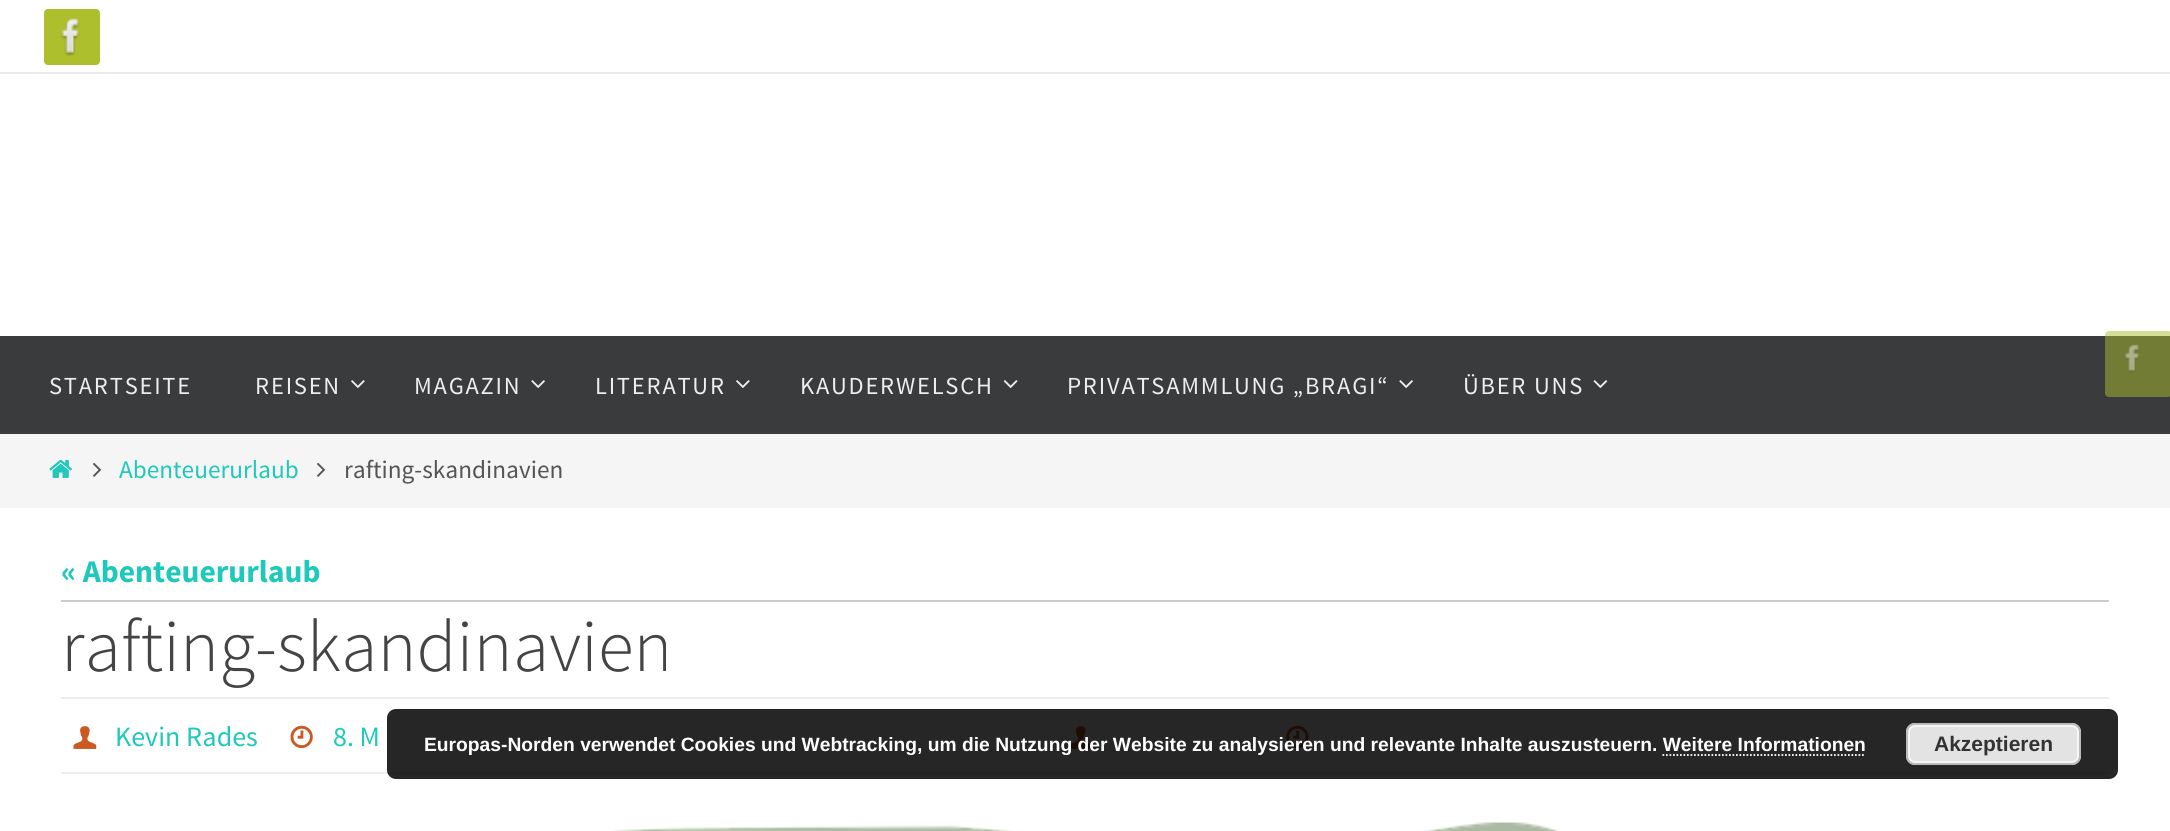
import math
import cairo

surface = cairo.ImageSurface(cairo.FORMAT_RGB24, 2170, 831)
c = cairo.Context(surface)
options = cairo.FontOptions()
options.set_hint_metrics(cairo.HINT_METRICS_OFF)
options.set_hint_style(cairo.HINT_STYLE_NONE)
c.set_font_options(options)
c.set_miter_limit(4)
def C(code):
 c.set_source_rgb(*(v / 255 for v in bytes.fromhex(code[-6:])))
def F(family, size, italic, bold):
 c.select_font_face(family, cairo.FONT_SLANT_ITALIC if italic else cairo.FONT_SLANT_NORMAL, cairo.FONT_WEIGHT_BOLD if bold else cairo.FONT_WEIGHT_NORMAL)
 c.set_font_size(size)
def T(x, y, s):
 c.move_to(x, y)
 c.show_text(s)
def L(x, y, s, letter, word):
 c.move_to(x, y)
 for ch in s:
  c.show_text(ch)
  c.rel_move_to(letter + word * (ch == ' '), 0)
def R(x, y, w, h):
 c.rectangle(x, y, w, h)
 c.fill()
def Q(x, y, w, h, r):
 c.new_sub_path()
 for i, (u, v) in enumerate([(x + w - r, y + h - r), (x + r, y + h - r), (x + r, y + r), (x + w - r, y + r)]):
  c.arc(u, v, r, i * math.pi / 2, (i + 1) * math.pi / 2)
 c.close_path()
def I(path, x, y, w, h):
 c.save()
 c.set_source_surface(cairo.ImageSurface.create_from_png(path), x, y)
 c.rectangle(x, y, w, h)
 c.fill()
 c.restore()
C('ffffff')
c.paint()
C('ebebeb')
R(0,72,2170,2)
C('adbf2d')
Q(44,9,56,56,4)
c.fill()
I('1.png',60,18,20,38)
C('3a3b3d')
R(0,336,2170,98)
F('Source Sans Pro',24.5,0,0)
C('eeeeee')
L(49,394,'STARTSEITE',1.75,0)
L(255,394,'REISEN',1.75,0)
I('2.png',351,380,14,8)
L(414,394,'MAGAZIN',1.75,0)
I('3.png',531,380,14,8)
L(595,394,'LITERATUR',1.75,0)
I('2.png',736,380,14,8)
L(800,394,'KAUDERWELSCH',1.75,0)
I('4.png',1003,380,15,8)
L(1067,394,'PRIVATSAMMLUNG „BRAGI“',1.75,0)
I('3.png',1399,380,14,8)
L(1463,394,'ÜBER UNS',1.75,0)
I('5.png',1593,380,15,8)
c.set_source_rgba(0.678,0.749,0.176,0.5)
Q(2105,331,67,66,4)
c.fill()
I('6.png',2124,344,15,29)
C('f5f5f5')
R(0,434,2170,74)
I('7.png',49,459,23,19)
I('8.png',93,462,9,15)
F('Source Sans Pro',25.25,0,0)
C('1ec8bb')
T(119,478,'Abenteuerurlaub')
I('8.png',317,462,9,15)
C('555555')
T(344,478,'rafting-skandinavien')
C('cccccc')
R(61,600,2048,2)
F('Source Sans Pro',31.5,0,1)
C('1ec8bb')
T(61,582,'« Abenteuerurlaub')
F('Source Sans Pro Light',73.5,0,0)
C('444444')
T(61,671,'rafting-skandinavien')
C('eeeeee')
R(61,697,2048,2)
R(61,772,2048,2)
I('9.png',73,726,24,23)
F('Source Sans Pro',28,0,0)
C('1ec8bb')
T(115,746,'Kevin Rades')
I('10.png',290,725,23,24)
T(333,746,'8. M')
I('11.png',1069,726,23,23)
I('12.png',1286,725,23,24)
I('13.png',608,822,952,9)
c.set_source_rgba(0,0,0,0.85)
Q(387,709,1731,70,9)
c.fill()
F('Liberation Sans',19.25,0,1)
C('ffffff')
T(424,751,'Europas-Norden verwendet Cookies und Webtracking, um die Nutzung der Website zu analysieren und relevante Inhalte auszusteuern. Weitere Informationen')
C('e3e3e3')
Q(1906,723,175,42,9)
c.fill()
Q(1909,726,169,36,6)
C('f6f6f6')
c.stroke()
Q(1907,724,173,40,8)
C('bbbbbb')
c.stroke()
F('Liberation Sans',21,0,1)
C('333333')
T(1934,751,'Akzeptieren')
c.new_path()
c.move_to(1662.5,755)
c.line_to(1865.5,755)
C('ffffff')
c.set_line_width(1.8)
c.set_dash([1.75,1.75])
c.stroke()
surface.write_to_png('o.png')
